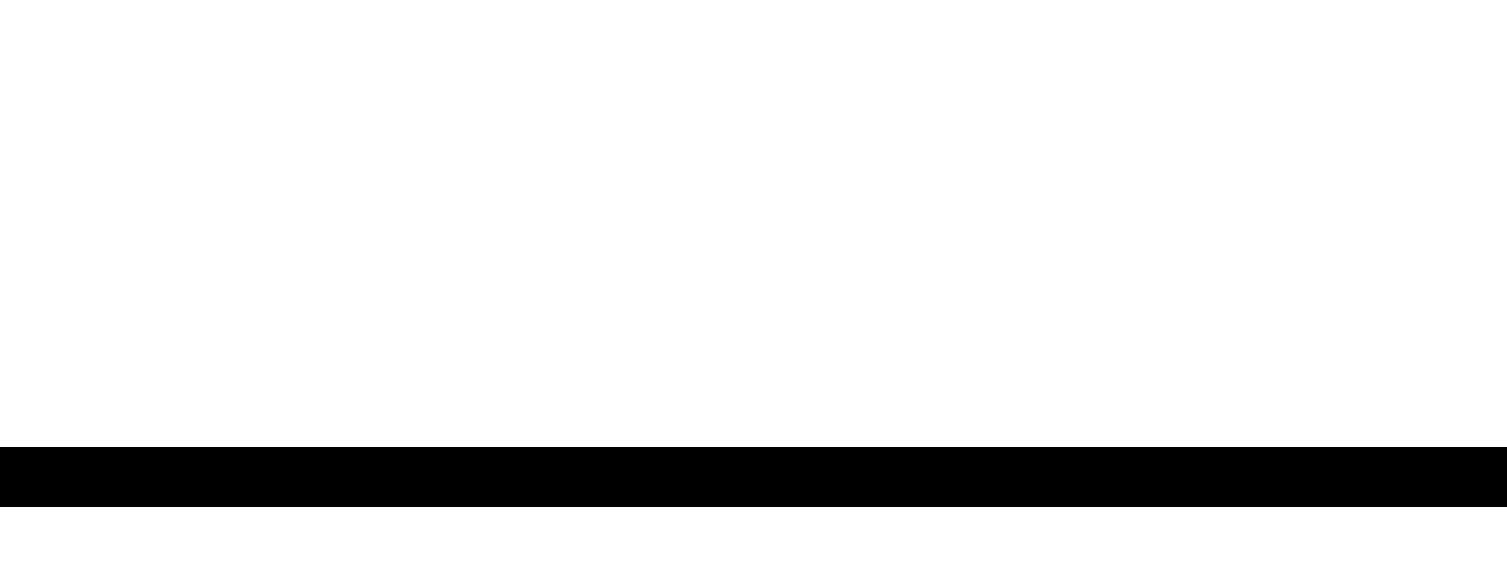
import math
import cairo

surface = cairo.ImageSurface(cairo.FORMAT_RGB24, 1507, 566)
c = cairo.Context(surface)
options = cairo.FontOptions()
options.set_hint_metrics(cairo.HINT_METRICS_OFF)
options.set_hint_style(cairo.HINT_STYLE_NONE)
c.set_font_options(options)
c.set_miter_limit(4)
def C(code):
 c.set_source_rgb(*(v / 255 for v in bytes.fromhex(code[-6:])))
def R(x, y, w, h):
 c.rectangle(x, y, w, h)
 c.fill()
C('ffffff')
c.paint()
C('000000')
R(0,447,1507,60)
surface.write_to_png('o.png')
